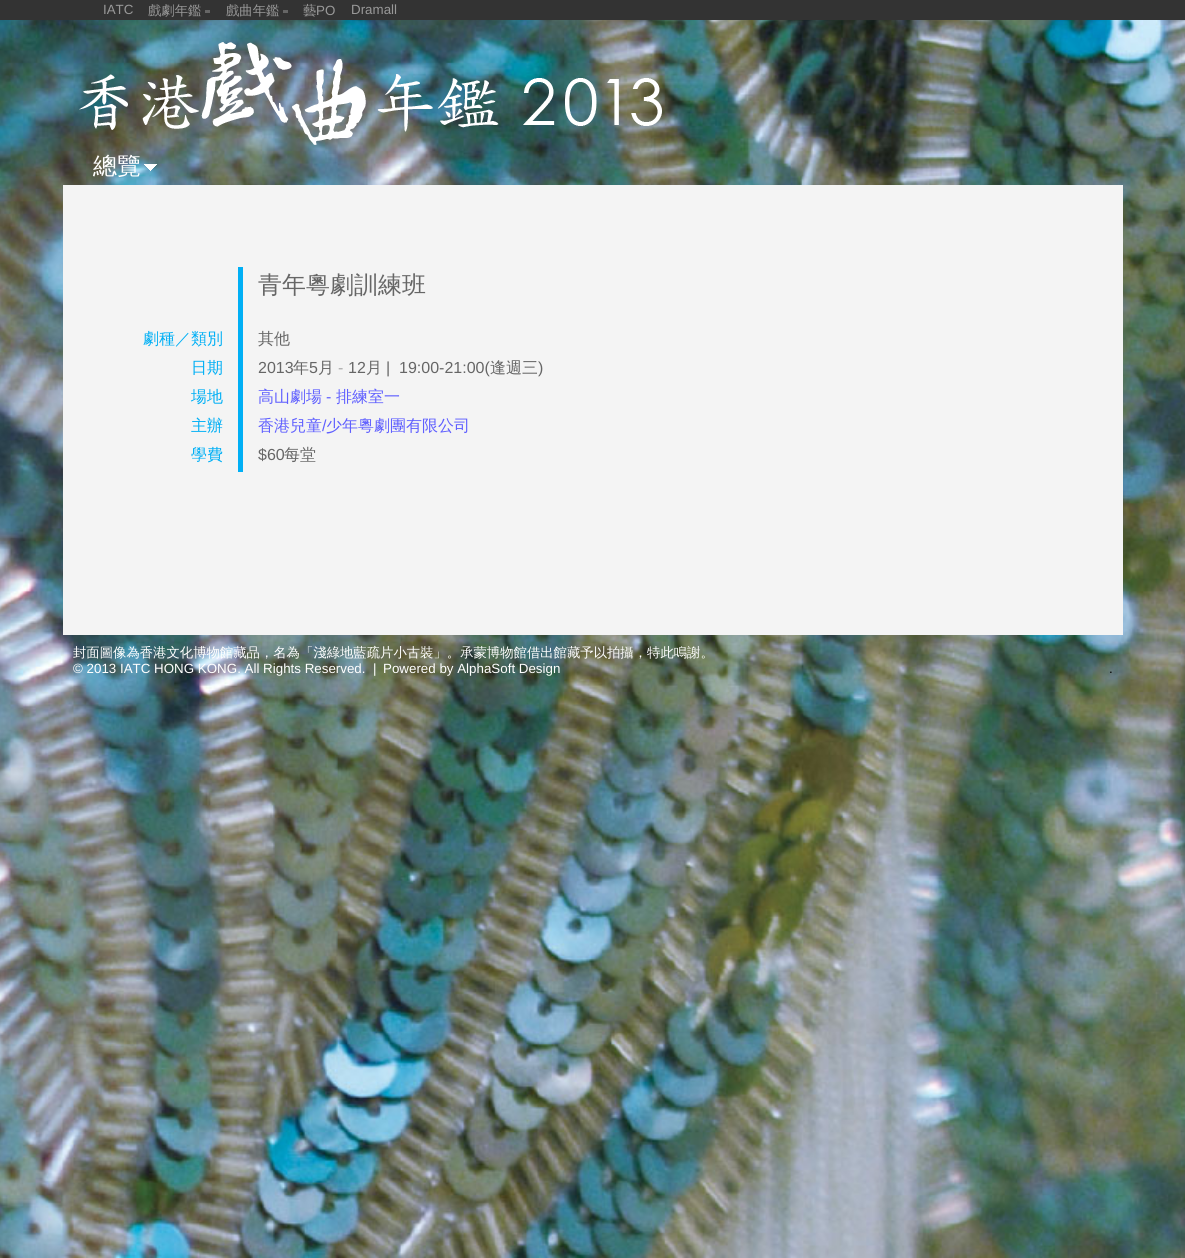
import math
import cairo

surface = cairo.ImageSurface(cairo.FORMAT_RGB24, 1185, 1258)
c = cairo.Context(surface)
options = cairo.FontOptions()
options.set_hint_metrics(cairo.HINT_METRICS_OFF)
options.set_hint_style(cairo.HINT_STYLE_NONE)
c.set_font_options(options)
c.set_miter_limit(4)
def C(code):
 c.set_source_rgb(*(v / 255 for v in bytes.fromhex(code[-6:])))
def F(family, size, italic, bold):
 c.select_font_face(family, cairo.FONT_SLANT_ITALIC if italic else cairo.FONT_SLANT_NORMAL, cairo.FONT_WEIGHT_BOLD if bold else cairo.FONT_WEIGHT_NORMAL)
 c.set_font_size(size)
def T(x, y, s):
 c.move_to(x, y)
 c.show_text(s)
def R(x, y, w, h):
 c.rectangle(x, y, w, h)
 c.fill()
def I(path, x, y, w, h):
 c.save()
 c.set_source_surface(cairo.ImageSurface.create_from_png(path), x, y)
 c.rectangle(x, y, w, h)
 c.fill()
 c.restore()
C('ffffff')
c.paint()
C('333333')
R(0,0,1185,20)
F('Liberation Sans',13.35,0,0)
C('999999')
T(103,14,'IATC')
F('WenQuanYi Zen Hei Medium',13.35,0,0)
T(148,15,'戲劇年鑑')
C('666666')
R(205,10,5,3)
C('999999')
T(226,15,'戲曲年鑑')
C('666666')
R(283,10,5,3)
C('999999')
T(303,15,'藝')
F('Liberation Sans',13.35,0,0)
T(316,15,'PO')
T(351,14,'Dramall')
I('1.png',0,20,1185,1238)
I('2.png',79,42,583,103)
F('WenQuanYi Zen Hei Medium',24,0,0)
C('ffffff')
T(93,174,'總覽')
I('3.png',144,164,13,7)
C('f4f4f4')
R(63,185,1060,450)
C('00aff5')
R(238,267,5,205)
C('666666')
T(258,293,'青年粵劇訓練班')
F('WenQuanYi Zen Hei Medium',16,0,0)
C('00aff5')
T(143,344,'劇種／類別')
C('666666')
T(258,344,'其他')
C('00aff5')
T(191,373,'日期')
F('Liberation Sans',16,0,0)
C('666666')
T(258,373,'2013')
F('WenQuanYi Zen Hei Medium',16,0,0)
T(293,373,'年')
F('Liberation Sans',16,0,0)
T(309,373,'5')
F('WenQuanYi Zen Hei Medium',16,0,0)
T(318,373,'月')
F('Liberation Sans',16,0,0)
C('aaaaaa')
T(338,373,'-')
C('666666')
T(348,373,'12')
F('WenQuanYi Zen Hei Medium',16,0,0)
T(366,373,'月')
F('Liberation Sans',16,0,0)
T(386,373,'|  19:00-21:00(')
F('WenQuanYi Zen Hei Medium',16,0,0)
T(490,373,'逢週三')
F('Liberation Sans',16,0,0)
T(538,373,')')
F('WenQuanYi Zen Hei Medium',16,0,0)
C('00aff5')
T(191,402,'場地')
C('5f5fff')
T(258,402,'高山劇場')
F('Liberation Sans',16,0,0)
T(326,402,'-')
F('WenQuanYi Zen Hei Medium',16,0,0)
T(336,402,'排練室一')
C('00aff5')
T(191,431,'主辦')
C('5f5fff')
T(258,431,'香港兒童')
F('Liberation Sans',16,0,0)
T(322,431,'/')
F('WenQuanYi Zen Hei Medium',16,0,0)
T(326,431,'少年粵劇團有限公司')
C('00aff5')
T(191,460,'學費')
F('Liberation Sans',16,0,0)
C('666666')
T(258,460,'$60')
F('WenQuanYi Zen Hei Medium',16,0,0)
T(284,460,'每堂')
F('WenQuanYi Zen Hei Medium',13.35,0,0)
C('ffffff')
T(73,657,'封面圖像為香港文化博物館藏品，名為「淺綠地藍疏片小古裝」。承蒙博物館借出館藏予以拍攝，特此鳴謝。')
F('Liberation Sans',13.35,0,0)
T(73,673,'© 2013 IATC HONG KONG. All Rights Reserved.  |')
T(383,673,'Powered by AlphaSoft Design')
C('000000')
T(1109,673,'.')
surface.write_to_png('o.png')
